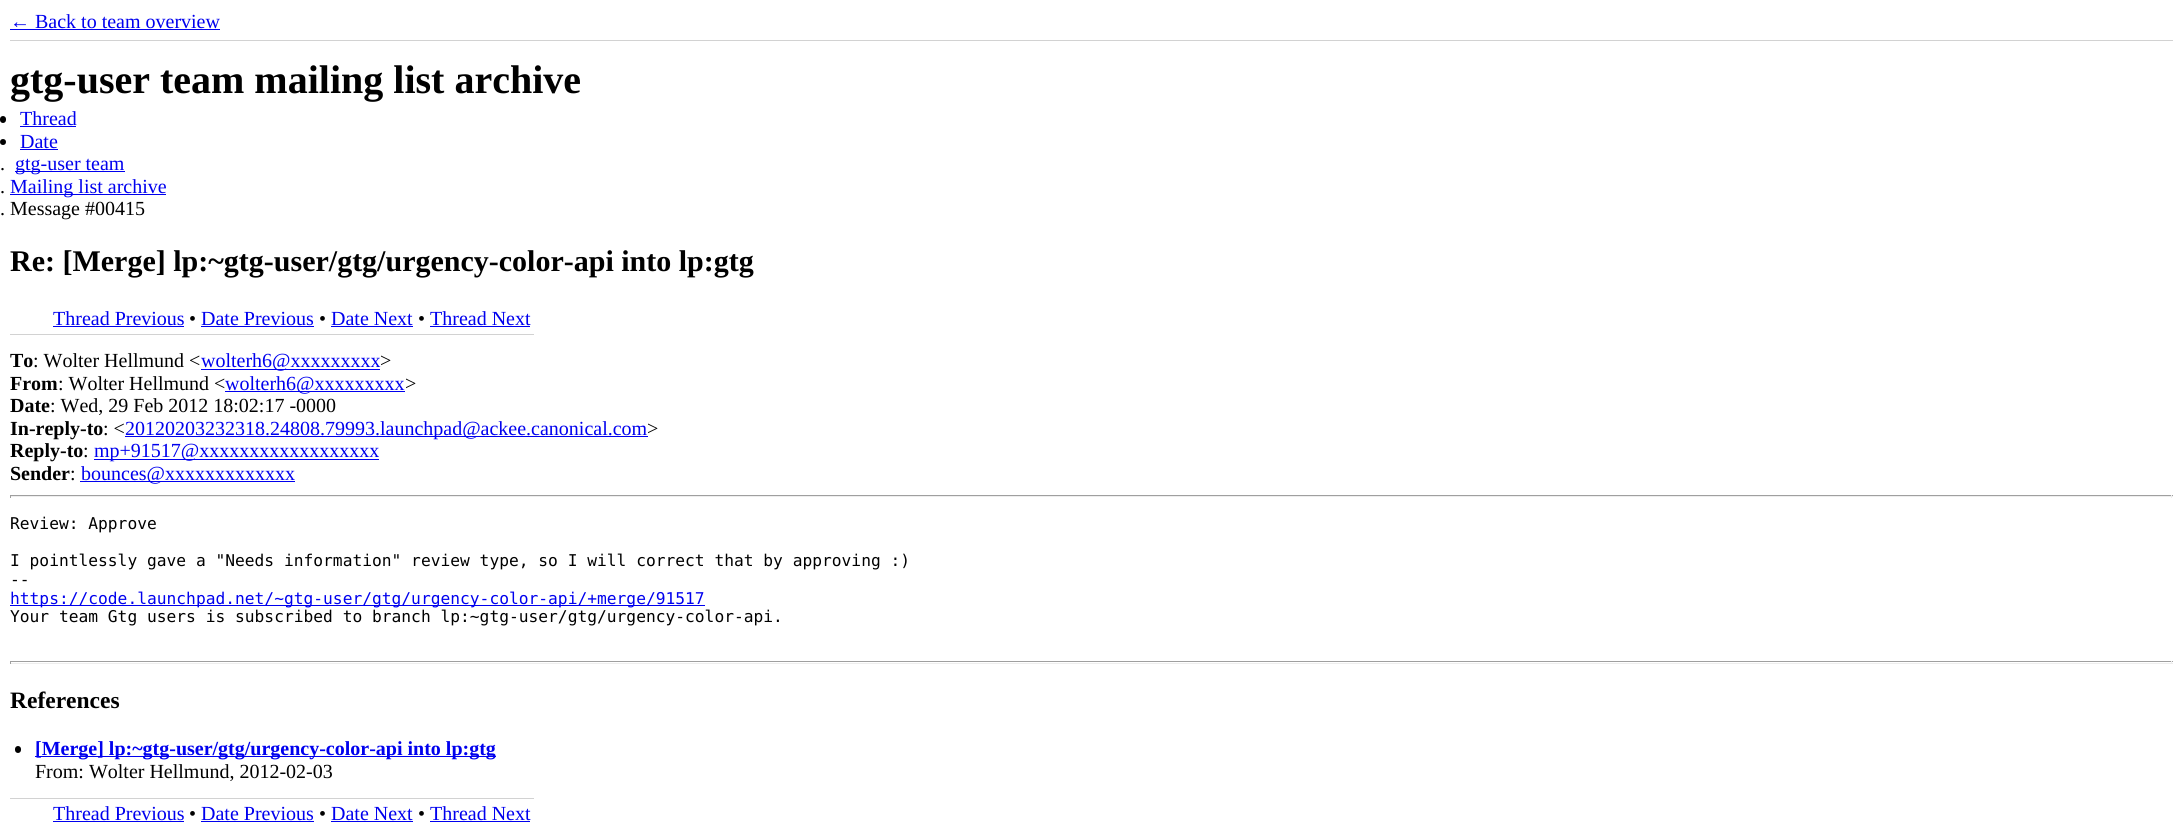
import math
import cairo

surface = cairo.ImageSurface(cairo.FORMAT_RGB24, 2182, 829)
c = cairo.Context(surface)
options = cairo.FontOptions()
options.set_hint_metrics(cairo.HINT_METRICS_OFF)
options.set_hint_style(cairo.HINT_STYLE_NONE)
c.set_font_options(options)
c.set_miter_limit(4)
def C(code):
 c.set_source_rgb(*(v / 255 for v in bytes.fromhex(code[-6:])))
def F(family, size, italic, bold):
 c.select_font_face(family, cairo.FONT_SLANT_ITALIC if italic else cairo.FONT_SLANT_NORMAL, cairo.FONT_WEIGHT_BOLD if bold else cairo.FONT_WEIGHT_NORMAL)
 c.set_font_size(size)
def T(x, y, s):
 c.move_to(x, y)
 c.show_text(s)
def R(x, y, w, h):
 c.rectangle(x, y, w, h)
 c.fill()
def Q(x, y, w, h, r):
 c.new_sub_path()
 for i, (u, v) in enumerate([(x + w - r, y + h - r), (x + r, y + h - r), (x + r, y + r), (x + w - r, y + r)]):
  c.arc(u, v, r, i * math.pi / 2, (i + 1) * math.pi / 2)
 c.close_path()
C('ffffff')
c.paint()
C('d2d2d2')
R(10,40,2163,1)
F('Liberation Serif',20,0,0)
C('0000ee')
T(10,28,'← Back to team overview')
R(10,29,210,1)
F('Liberation Serif',40,0,1)
C('000000')
T(10,93,'gtg-user team mailing list archive')
Q(0,116,6,7,3)
c.fill()
F('Liberation Serif',20,0,0)
C('0000ee')
T(20,125,'Thread')
R(20,126,56,1)
C('000000')
c.new_path()
c.arc(3,142,3,0,2 * math.pi)
c.fill()
C('0000ee')
T(20,148,'Date')
R(20,149,38,1)
C('000000')
T(0,170,'.')
C('0000ee')
R(15,171,110,1)
T(15,170,'gtg-user team')
C('000000')
T(0,193,'.')
C('0000ee')
R(10,194,156,1)
T(10,193,'Mailing list archive')
C('000000')
T(0,215,'. Message #00415')
F('Liberation Serif',30,0,1)
T(10,271,'Re: [Merge] lp:~gtg-user/gtg/urgency-color-api into lp:gtg')
C('d2d2d2')
R(10,334,524,1)
F('Liberation Serif',20,0,0)
C('0000ee')
T(53,325,'Thread Previous')
R(53,326,131,1)
C('000000')
T(189,325,'•')
C('0000ee')
T(201,325,'Date Previous')
R(201,326,113,1)
C('000000')
T(319,325,'•')
C('0000ee')
T(331,325,'Date Next')
R(331,326,82,1)
C('000000')
T(418,325,'•')
C('0000ee')
T(430,325,'Thread Next')
R(430,326,100,1)
F('Liberation Serif',20,0,1)
C('000000')
T(10,367,'To')
F('Liberation Serif',20,0,0)
T(33,367,': Wolter Hellmund <')
C('0000ee')
R(201,369,179,1)
T(201,367,'wolterh6@xxxxxxxxx')
C('000000')
T(380,367,'>')
F('Liberation Serif',20,0,1)
T(10,390,'From')
F('Liberation Serif',20,0,0)
T(58,390,': Wolter Hellmund <')
C('0000ee')
R(225,391,180,1)
T(225,390,'wolterh6@xxxxxxxxx')
C('000000')
T(405,390,'>')
F('Liberation Serif',20,0,1)
T(10,412,'Date')
F('Liberation Serif',20,0,0)
T(50,412,': Wed, 29 Feb 2012 18:02:17 -0000')
F('Liberation Serif',20,0,1)
T(10,435,'In-reply-to')
F('Liberation Serif',20,0,0)
T(103,435,': <')
C('0000ee')
R(125,436,523,1)
T(125,435,'20120203232318.24808.79993.launchpad@ackee.canonical.com')
C('000000')
T(647,435,'>')
F('Liberation Serif',20,0,1)
T(10,457,'Reply-to')
F('Liberation Serif',20,0,0)
T(83,457,':')
C('0000ee')
R(94,459,285,1)
T(94,457,'mp+91517@xxxxxxxxxxxxxxxxxx')
F('Liberation Serif',20,0,1)
C('000000')
T(10,480,'Sender')
F('Liberation Serif',20,0,0)
T(70,480,':')
C('0000ee')
R(80,481,215,1)
T(81,480,'bounces@xxxxxxxxxxxxx')
C('9f9f9f')
R(10,495,2163,1)
C('eeeeee')
R(2171,495,1,3)
R(10,496,2163,1)
C('9f9f9f')
R(10,495,1,3)
F('DejaVu Sans Mono',16.25,0,0)
C('000000')
T(10,529,'Review: Approve')
T(10,566,'I pointlessly gave a "Needs information" review type, so I will correct that by approving :)')
T(10,585,'--')
C('0000ee')
R(10,605,695,1)
T(10,604,'https://code.launchpad.net/~gtg-user/gtg/urgency-color-api/+merge/91517')
C('000000')
T(10,622,'Your team Gtg users is subscribed to branch lp:~gtg-user/gtg/urgency-color-api.')
C('9f9f9f')
R(10,661,2163,1)
C('eeeeee')
R(2171,661,1,3)
R(10,663,2163,1)
C('9f9f9f')
R(10,661,1,3)
F('Liberation Serif',23.5,0,1)
C('000000')
T(10,708,'References')
Q(15,746,6,7,3)
c.fill()
C('0000ee')
R(35,756,461,1)
F('Liberation Serif',20,0,1)
T(35,755,'[Merge] lp:~gtg-user/gtg/urgency-color-api into lp:gtg')
F('Liberation Serif',20,0,0)
C('000000')
T(35,778,'From: Wolter Hellmund, 2012-02-03')
C('d2d2d2')
R(10,798,524,1)
C('0000ee')
T(53,820,'Thread Previous')
R(53,821,131,1)
C('000000')
T(189,820,'•')
C('0000ee')
T(201,820,'Date Previous')
R(201,821,113,1)
C('000000')
T(319,820,'•')
C('0000ee')
T(331,820,'Date Next')
R(331,821,82,1)
C('000000')
T(418,820,'•')
C('0000ee')
T(430,820,'Thread Next')
R(430,821,100,1)
surface.write_to_png('o.png')
